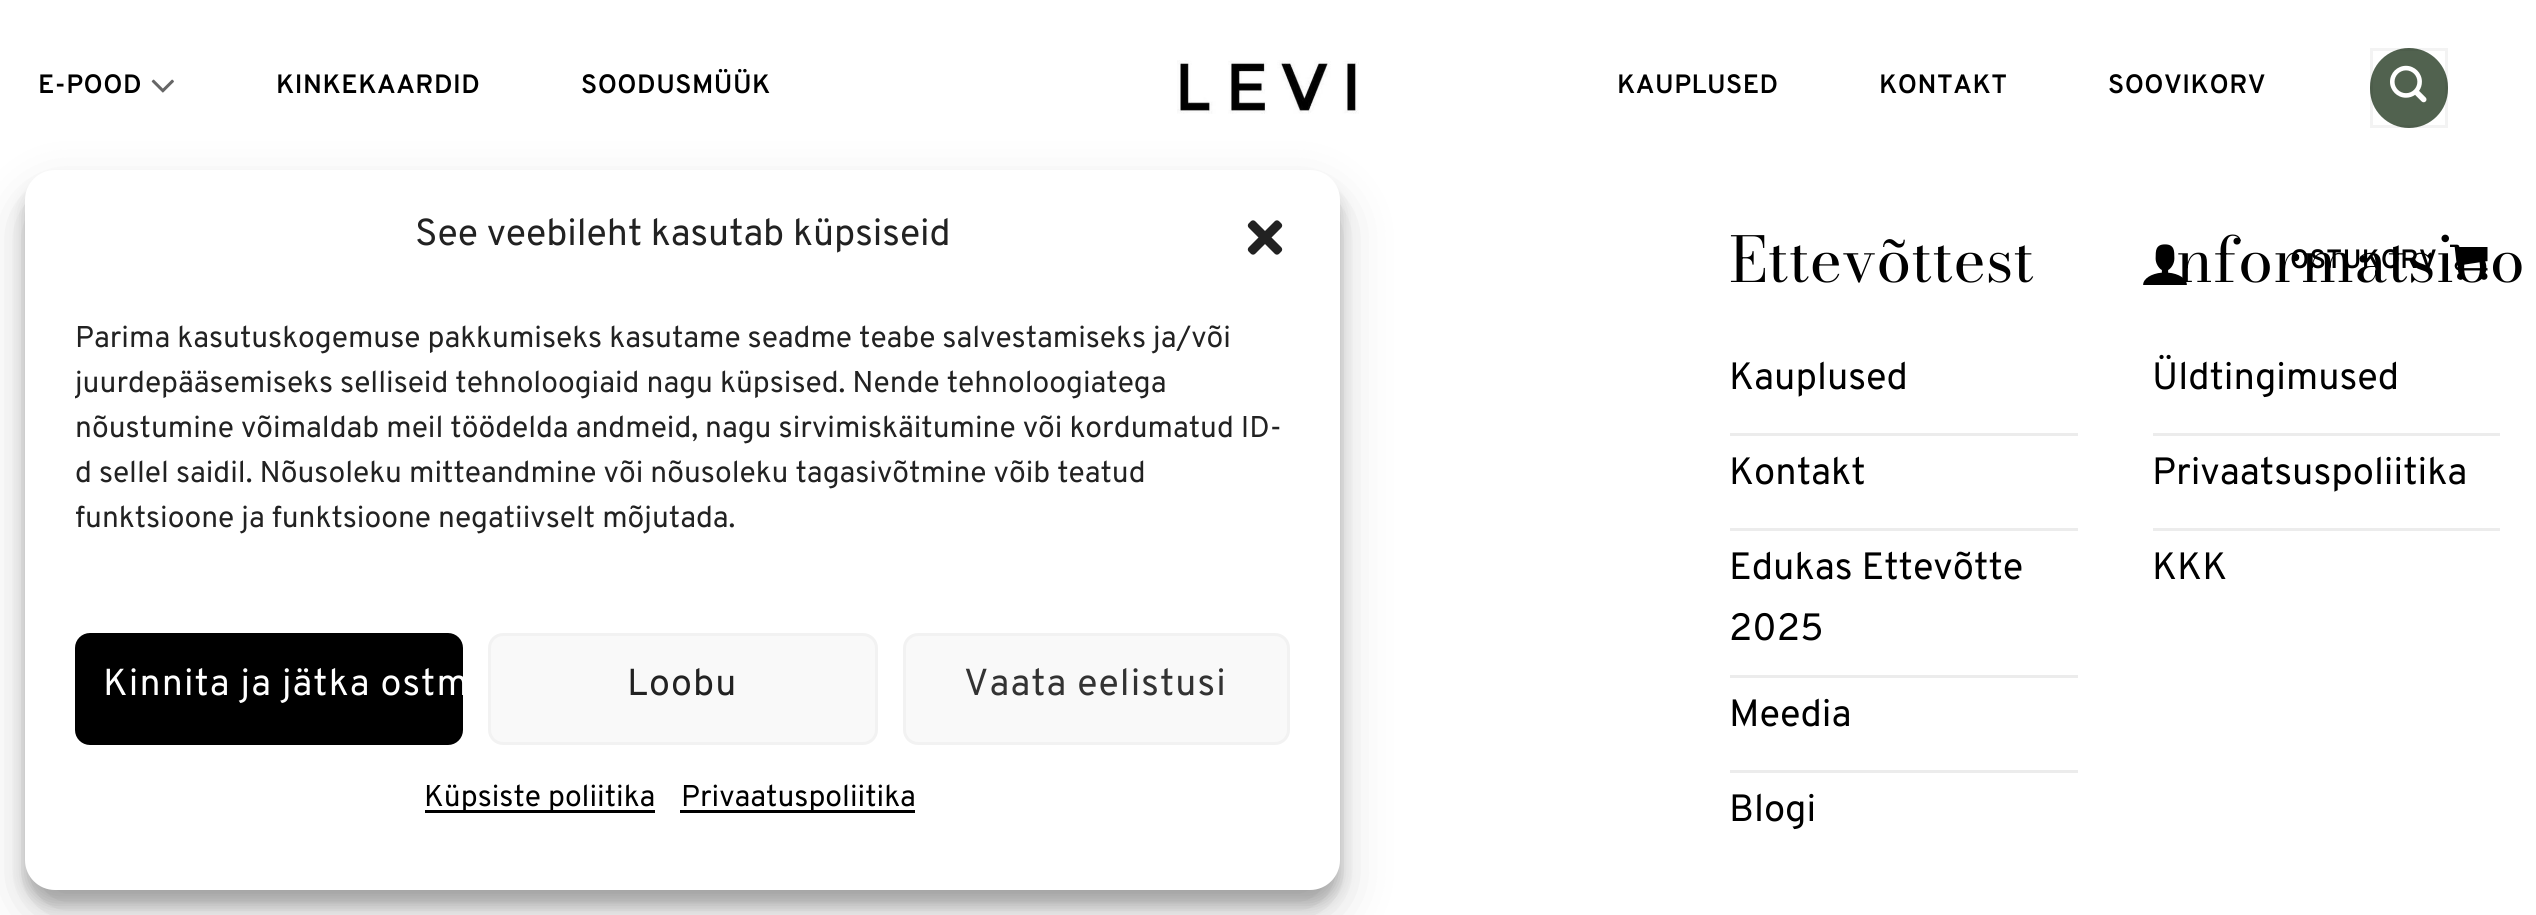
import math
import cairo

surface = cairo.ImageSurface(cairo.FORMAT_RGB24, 2536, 915)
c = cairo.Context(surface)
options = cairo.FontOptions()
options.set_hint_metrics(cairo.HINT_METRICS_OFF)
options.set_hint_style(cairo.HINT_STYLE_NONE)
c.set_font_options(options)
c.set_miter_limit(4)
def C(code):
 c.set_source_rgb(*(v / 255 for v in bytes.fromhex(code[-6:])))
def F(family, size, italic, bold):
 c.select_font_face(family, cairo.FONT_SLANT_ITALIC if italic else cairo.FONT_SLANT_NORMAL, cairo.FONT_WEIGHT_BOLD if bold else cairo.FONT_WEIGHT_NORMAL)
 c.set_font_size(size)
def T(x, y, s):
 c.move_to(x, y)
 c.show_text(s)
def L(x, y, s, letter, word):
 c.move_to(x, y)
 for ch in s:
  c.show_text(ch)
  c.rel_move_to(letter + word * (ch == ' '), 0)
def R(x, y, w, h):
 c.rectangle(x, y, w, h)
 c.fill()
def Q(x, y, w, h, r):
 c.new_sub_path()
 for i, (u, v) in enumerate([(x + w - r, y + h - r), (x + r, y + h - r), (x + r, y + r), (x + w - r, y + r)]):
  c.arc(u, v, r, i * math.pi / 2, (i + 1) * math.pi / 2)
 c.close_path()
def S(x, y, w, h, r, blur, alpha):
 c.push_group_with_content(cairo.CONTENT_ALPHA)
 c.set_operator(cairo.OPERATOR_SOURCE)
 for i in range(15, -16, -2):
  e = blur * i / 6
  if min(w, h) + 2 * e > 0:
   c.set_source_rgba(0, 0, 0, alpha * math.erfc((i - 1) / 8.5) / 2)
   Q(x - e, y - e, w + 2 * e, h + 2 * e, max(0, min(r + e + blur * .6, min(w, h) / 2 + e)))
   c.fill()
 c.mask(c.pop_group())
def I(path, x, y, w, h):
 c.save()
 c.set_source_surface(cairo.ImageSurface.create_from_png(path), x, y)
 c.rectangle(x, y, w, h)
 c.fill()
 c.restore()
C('ffffff')
c.paint()
F('Overpass SemiBold',26.5,0,0)
C('000000')
L(38,93,'E-POOD',.5,0)
I('1.png',151,79,23,14)
L(276,93,'KINKEKAARDID',.5,0)
L(581,93,'SOODUSMÜÜK',.5,0)
I('2.png',1177,60,182,54)
L(1617,93,'KAUPLUSED',.5,0)
L(1879,93,'KONTAKT',.5,0)
L(2108,93,'SOOVIKORV',.5,0)
C('51624f')
Q(2370,48,78,80,39)
c.fill()
c.rectangle(2371.5,49.5,75,77)
c.set_source_rgba(0,0,0,0.05)
c.set_line_width(3)
c.stroke()
I('3.png',2390,65,37,38)
F('Bodoni Moda',62.5,0,0)
C('000000')
T(2176,282,'nformatsioo')
I('4.png',2143,244,44,41)
F('Overpass SemiBold',26.5,0,0)
L(2290,268,'OSTUKORV',.5,0)
I('5.png',2450,244,38,36)
F('Bodoni Moda',62.5,0,0)
T(1729,282,'Ettevõttest')
C('ececec')
R(1730,433,348,3)
F('Overpass',38,0,0)
C('000000')
T(1729,389,'Kauplused')
C('ececec')
R(1730,528,348,3)
C('000000')
T(1729,484,'Kontakt')
C('ececec')
R(1730,675,348,3)
C('000000')
T(1729,579,'Edukas Ettevõtte')
T(1729,640,'2025')
C('ececec')
R(1730,770,348,3)
C('000000')
T(1729,726,'Meedia')
T(1729,821,'Blogi')
C('ececec')
R(2153,433,347,3)
C('000000')
T(2152,389,'Üldtingimused')
C('ececec')
R(2153,528,347,3)
C('000000')
T(2152,484,'Privaatsuspoliitika')
T(2152,579,'KKK')
C('000000')
S(25,185,1315,720,30,7.5,.23)
S(25,195,1315,720,30,25,.19)
C('ffffff')
Q(25,170,1315,720,30)
c.fill()
F('Overpass',37.5,0,0)
C('222222')
T(415,245,'See veebileht kasutab küpsiseid')
I('6.png',1247,220,36,35)
F('Overpass',30,0,0)
T(75,347,'Parima kasutuskogemuse pakkumiseks kasutame seadme teabe salvestamiseks ja/või')
c.save()
c.rectangle(75,318,1215,265)
c.clip()
T(75,392,'juurdepääsemiseks selliseid tehnoloogiaid nagu küpsised. Nende tehnoloogiatega')
c.restore()
T(75,437,'nõustumine võimaldab meil töödelda andmeid, nagu sirvimiskäitumine või kordumatud ID-')
T(75,482,'d sellel saidil. Nõusoleku mitteandmine või nõusoleku tagasivõtmine võib teatud')
T(75,527,'funktsioone ja funktsioone negatiivselt mõjutada.')
C('000000')
Q(76.5,634.5,385,109,13.5)
c.fill_preserve()
c.stroke()
F('Overpass',37.5,0,0)
C('ffffff')
L(103,695,'Kinnita ja jätka ostm',1.1,0)
C('f9f9f9')
Q(489.5,634.5,387,109,13.5)
c.fill_preserve()
C('f2f2f2')
c.stroke()
C('222222')
L(627,695,'Loobu',1.1,0)
C('f9f9f9')
Q(904.5,634.5,384,109,13.5)
c.fill_preserve()
C('f2f2f2')
c.stroke()
C('333333')
L(964,695,'Vaata eelistusi',1.1,0)
C('000000')
R(425,810,230,3)
F('Overpass',30,0,0)
T(424,806,'Küpsiste poliitika')
R(680,810,235,3)
T(681,806,'Privaatuspoliitika')
surface.write_to_png('o.png')
